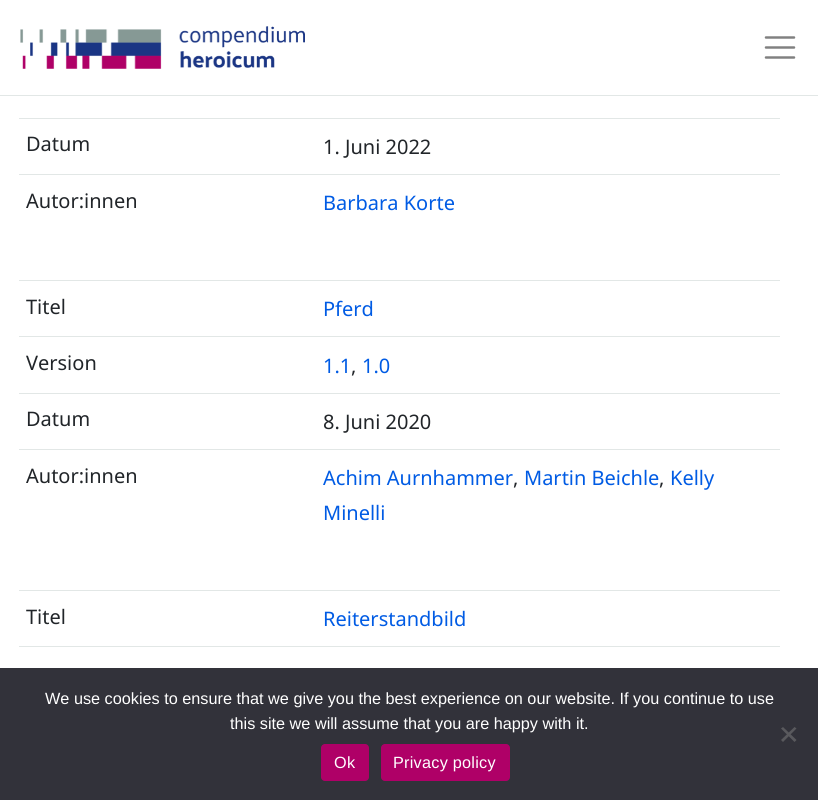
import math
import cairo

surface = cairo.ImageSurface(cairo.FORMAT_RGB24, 818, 800)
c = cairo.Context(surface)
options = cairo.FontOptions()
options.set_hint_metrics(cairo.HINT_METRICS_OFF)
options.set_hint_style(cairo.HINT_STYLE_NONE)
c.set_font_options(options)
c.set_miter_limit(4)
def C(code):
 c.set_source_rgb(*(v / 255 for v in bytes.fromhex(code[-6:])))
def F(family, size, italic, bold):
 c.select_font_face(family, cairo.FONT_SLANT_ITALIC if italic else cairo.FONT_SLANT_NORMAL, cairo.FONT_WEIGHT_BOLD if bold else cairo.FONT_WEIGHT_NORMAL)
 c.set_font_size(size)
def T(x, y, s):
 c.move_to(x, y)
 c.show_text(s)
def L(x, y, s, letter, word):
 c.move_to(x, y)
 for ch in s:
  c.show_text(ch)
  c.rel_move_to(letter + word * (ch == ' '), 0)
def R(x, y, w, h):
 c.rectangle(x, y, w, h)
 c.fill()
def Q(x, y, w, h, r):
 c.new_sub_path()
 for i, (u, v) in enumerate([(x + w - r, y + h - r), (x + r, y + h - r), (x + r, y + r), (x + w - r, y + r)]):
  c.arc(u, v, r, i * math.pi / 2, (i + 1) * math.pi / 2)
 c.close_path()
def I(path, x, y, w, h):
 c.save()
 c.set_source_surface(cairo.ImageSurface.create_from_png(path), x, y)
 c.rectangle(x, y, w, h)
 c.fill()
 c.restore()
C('ffffff')
c.paint()
C('e2e7e6')
R(0,95,818,1)
I('1.png',20,26,285,43)
c.new_path()
c.move_to(766,37.5)
c.line_to(794,37.5)
c.move_to(766,47.5)
c.line_to(794,47.5)
c.move_to(766,57.5)
c.line_to(794,57.5)
C('808080')
c.set_line_width(2.5)
c.set_line_cap(cairo.LINE_CAP_ROUND)
c.stroke()
C('e2e7e6')
R(19,118,761,1)
F('Noto Sans',20,0,0)
C('212529')
T(26,151,'Datum')
T(323,154,'1. Juni 2022')
C('e2e7e6')
R(19,174,761,1)
C('212529')
T(26,208,'Autor:innen')
C('005be4')
T(323,210,'Barbara Korte')
C('e2e7e6')
R(19,280,761,1)
C('212529')
T(26,314,'Titel')
C('005be4')
T(323,316,'Pferd')
C('e2e7e6')
R(19,336,761,1)
C('212529')
T(26,370,'Version')
C('005be4')
T(323,373,'1.1')
C('212529')
T(351,373,',')
C('005be4')
T(362,373,'1.0')
C('e2e7e6')
R(19,393,761,1)
C('212529')
T(26,426,'Datum')
T(323,429,'8. Juni 2020')
C('e2e7e6')
R(19,449,761,1)
C('212529')
T(26,483,'Autor:innen')
C('005be4')
T(323,485,'Achim Aurnhammer')
C('212529')
T(513,485,',')
C('005be4')
T(524,485,'Martin Beichle')
C('212529')
T(659,485,',')
C('005be4')
T(670,485,'Kelly')
T(323,520,'Minelli')
C('e2e7e6')
R(19,590,761,1)
C('212529')
T(26,624,'Titel')
C('005be4')
T(323,626,'Reiterstandbild')
C('e2e7e6')
R(19,646,761,1)
C('32323a')
R(0,668,818,132)
F('Liberation Sans',16.25,0,0)
C('ffffff')
T(45,704,'We use cookies to ensure that we give you the best experience on our website. If you continue to use')
T(230,729,'this site we will assume that you are happy with it.')
C('59595d')
c.new_path()
c.move_to(794.5,727)
c.line_to(796.5,728.5)
c.line_to(783,742)
c.line_to(781,740)
c.close_path()
c.fill()
c.new_path()
c.move_to(781,728.5)
c.line_to(783,727)
c.line_to(796.5,740)
c.line_to(794.5,742)
c.close_path()
c.fill()
C('af0067')
Q(321,744,48,37,4)
c.fill()
C('ffffff')
L(334,768,'Ok',.25,0)
C('af0067')
Q(381,744,129,37,4)
c.fill()
C('ffffff')
L(393,768,'Privacy policy',.25,0)
surface.write_to_png('o.png')
